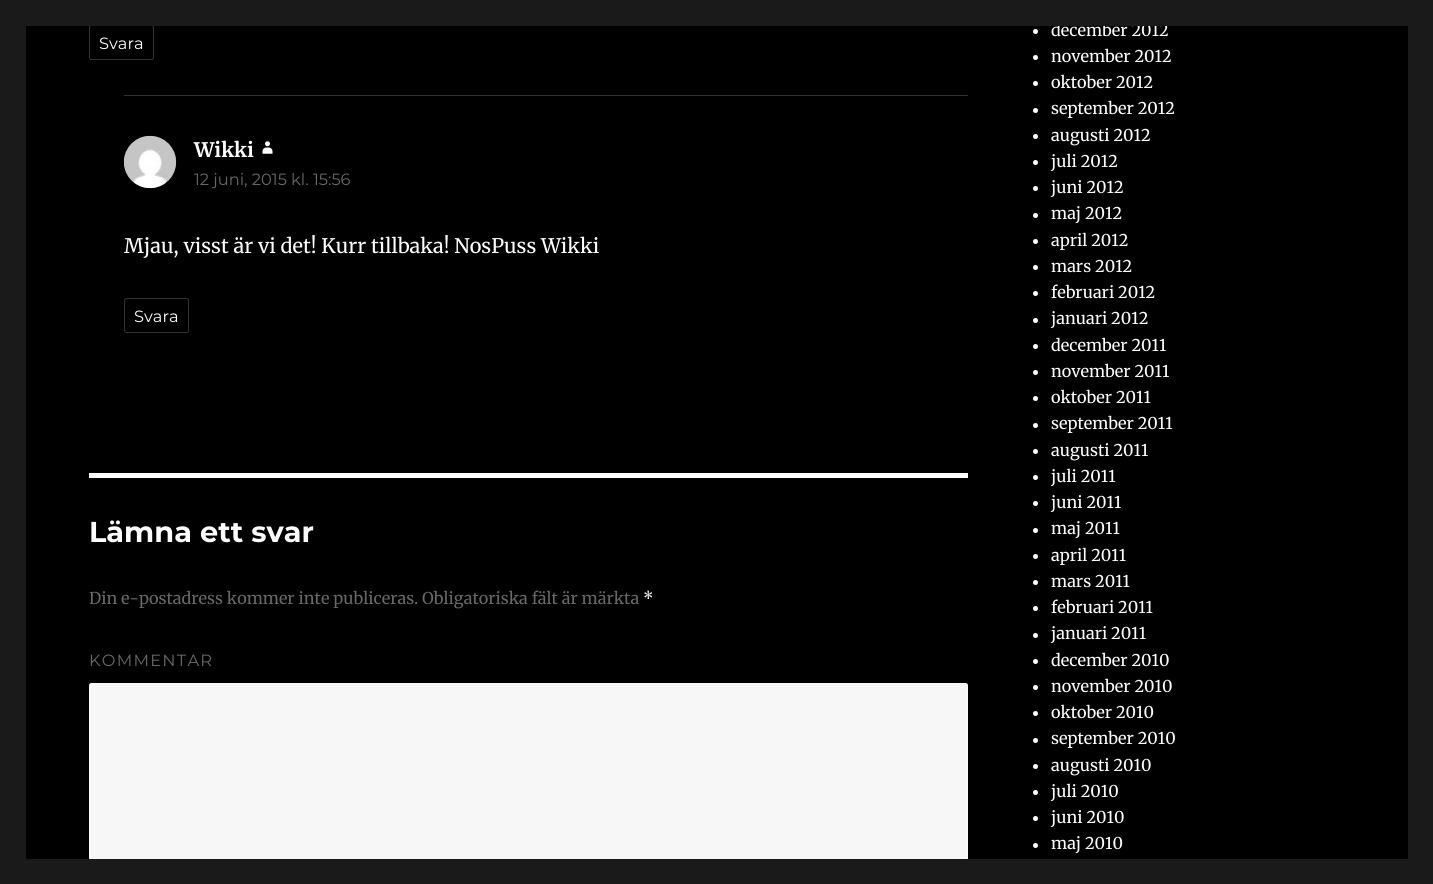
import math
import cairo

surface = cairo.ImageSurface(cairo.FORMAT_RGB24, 1433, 884)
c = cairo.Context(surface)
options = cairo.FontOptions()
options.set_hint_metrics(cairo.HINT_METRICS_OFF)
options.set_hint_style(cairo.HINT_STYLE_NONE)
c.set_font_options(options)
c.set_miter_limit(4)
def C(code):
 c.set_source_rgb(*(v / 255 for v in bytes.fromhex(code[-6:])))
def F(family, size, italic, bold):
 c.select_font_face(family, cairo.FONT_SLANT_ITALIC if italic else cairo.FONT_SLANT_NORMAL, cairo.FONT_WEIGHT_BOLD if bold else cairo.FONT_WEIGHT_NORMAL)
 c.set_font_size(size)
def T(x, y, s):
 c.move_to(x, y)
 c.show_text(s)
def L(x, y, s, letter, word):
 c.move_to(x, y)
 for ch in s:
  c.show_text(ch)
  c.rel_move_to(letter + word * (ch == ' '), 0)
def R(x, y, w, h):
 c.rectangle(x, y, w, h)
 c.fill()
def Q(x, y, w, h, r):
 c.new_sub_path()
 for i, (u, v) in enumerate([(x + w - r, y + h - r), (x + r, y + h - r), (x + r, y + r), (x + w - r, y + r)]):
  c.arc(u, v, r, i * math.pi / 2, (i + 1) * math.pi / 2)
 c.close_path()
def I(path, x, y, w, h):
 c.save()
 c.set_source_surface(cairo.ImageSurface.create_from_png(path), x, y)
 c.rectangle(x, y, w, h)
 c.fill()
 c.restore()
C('1a1a1a')
c.paint()
C('000000')
R(26,26,1382,833)
Q(89.5,25.5,64,34,2)
C('333333')
c.set_line_width(1)
c.stroke()
F('Montserrat',16.25,0,0)
C('ffffff')
T(99,49,'Svara')
C('333333')
R(124,95,844,1)
I('1.png',123,135,54,54)
F('Merriweather',20,0,1)
C('ffffff')
T(194,157,'Wikki')
I('2.png',262,141,11,13)
F('Montserrat',16.25,0,0)
C('686868')
T(194,185,'12 juni, 2015 kl. 15:56')
F('Merriweather',20,0,0)
C('ffffff')
T(124,253,'Mjau, visst är vi det! Kurr tillbaka! NosPuss Wikki')
Q(124.5,298.5,64,34,2)
C('333333')
c.stroke()
F('Montserrat',16.25,0,0)
C('ffffff')
T(134,322,'Svara')
R(89,473,879,5)
F('Montserrat',28.75,0,1)
T(89,542,'Lämna ett svar')
F('Merriweather',16.25,0,0)
C('686868')
T(89,604,'Din e-postadress kommer inte publiceras. Obligatoriska fält är märkta')
C('ffffff')
T(643,604,'*')
F('Montserrat',16.25,0,0)
C('686868')
L(89,666,'KOMMENTAR',1.25,0)
C('f7f7f7')
Q(89,683,879,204,2.5)
c.fill()
Q(89.5,683.5,878,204,2)
c.set_source_rgba(1,1,1,0.2)
c.stroke()
C('ffffff')
c.arc(1035.5,31.5,2.5,0,2 * math.pi)
c.fill()
F('Merriweather',16.25,0,0)
T(1051,36,'december 2012')
c.new_path()
c.arc(1035.5,57.5,2.5,0,2 * math.pi)
c.fill()
T(1051,62,'november 2012')
c.new_path()
c.arc(1035.5,83.5,2.5,0,2 * math.pi)
c.fill()
T(1051,88,'oktober 2012')
c.new_path()
c.arc(1035.5,110.5,2.5,0,2 * math.pi)
c.fill()
T(1051,114,'september 2012')
c.new_path()
c.arc(1035.5,136.5,2.5,0,2 * math.pi)
c.fill()
T(1051,141,'augusti 2012')
c.new_path()
c.arc(1035.5,162.5,2.5,0,2 * math.pi)
c.fill()
T(1051,167,'juli 2012')
c.new_path()
c.arc(1035.5,188.5,2.5,0,2 * math.pi)
c.fill()
T(1051,193,'juni 2012')
c.new_path()
c.arc(1035.5,215.5,2.5,0,2 * math.pi)
c.fill()
T(1051,219,'maj 2012')
c.new_path()
c.arc(1035.5,241.5,2.5,0,2 * math.pi)
c.fill()
T(1051,246,'april 2012')
c.new_path()
c.arc(1035.5,267.5,2.5,0,2 * math.pi)
c.fill()
T(1051,272,'mars 2012')
c.new_path()
c.arc(1035.5,293.5,2.5,0,2 * math.pi)
c.fill()
T(1051,298,'februari 2012')
c.new_path()
c.arc(1035.5,320.5,2.5,0,2 * math.pi)
c.fill()
T(1051,324,'januari 2012')
c.new_path()
c.arc(1035.5,346.5,2.5,0,2 * math.pi)
c.fill()
T(1051,351,'december 2011')
c.new_path()
c.arc(1035.5,372.5,2.5,0,2 * math.pi)
c.fill()
T(1051,377,'november 2011')
c.new_path()
c.arc(1035.5,398.5,2.5,0,2 * math.pi)
c.fill()
T(1051,403,'oktober 2011')
c.new_path()
c.arc(1035.5,425.5,2.5,0,2 * math.pi)
c.fill()
T(1051,429,'september 2011')
c.new_path()
c.arc(1035.5,451.5,2.5,0,2 * math.pi)
c.fill()
T(1051,456,'augusti 2011')
c.new_path()
c.arc(1035.5,477.5,2.5,0,2 * math.pi)
c.fill()
T(1051,482,'juli 2011')
c.new_path()
c.arc(1035.5,503.5,2.5,0,2 * math.pi)
c.fill()
T(1051,508,'juni 2011')
c.new_path()
c.arc(1035.5,530.5,2.5,0,2 * math.pi)
c.fill()
T(1051,534,'maj 2011')
c.new_path()
c.arc(1035.5,556.5,2.5,0,2 * math.pi)
c.fill()
T(1051,561,'april 2011')
c.new_path()
c.arc(1035.5,582.5,2.5,0,2 * math.pi)
c.fill()
T(1051,587,'mars 2011')
c.new_path()
c.arc(1035.5,608.5,2.5,0,2 * math.pi)
c.fill()
T(1051,613,'februari 2011')
c.new_path()
c.arc(1035.5,635.5,2.5,0,2 * math.pi)
c.fill()
T(1051,639,'januari 2011')
c.new_path()
c.arc(1035.5,661.5,2.5,0,2 * math.pi)
c.fill()
T(1051,666,'december 2010')
c.new_path()
c.arc(1035.5,687.5,2.5,0,2 * math.pi)
c.fill()
T(1051,692,'november 2010')
c.new_path()
c.arc(1035.5,713.5,2.5,0,2 * math.pi)
c.fill()
T(1051,718,'oktober 2010')
c.new_path()
c.arc(1035.5,740.5,2.5,0,2 * math.pi)
c.fill()
T(1051,744,'september 2010')
c.new_path()
c.arc(1035.5,766.5,2.5,0,2 * math.pi)
c.fill()
T(1051,771,'augusti 2010')
c.new_path()
c.arc(1035.5,792.5,2.5,0,2 * math.pi)
c.fill()
T(1051,797,'juli 2010')
c.new_path()
c.arc(1035.5,818.5,2.5,0,2 * math.pi)
c.fill()
T(1051,823,'juni 2010')
c.new_path()
c.arc(1035.5,845.5,2.5,0,2 * math.pi)
c.fill()
T(1051,849,'maj 2010')
C('1a1a1a')
R(89,22,1078,4)
R(89,859,879,25)
surface.write_to_png('o.png')
